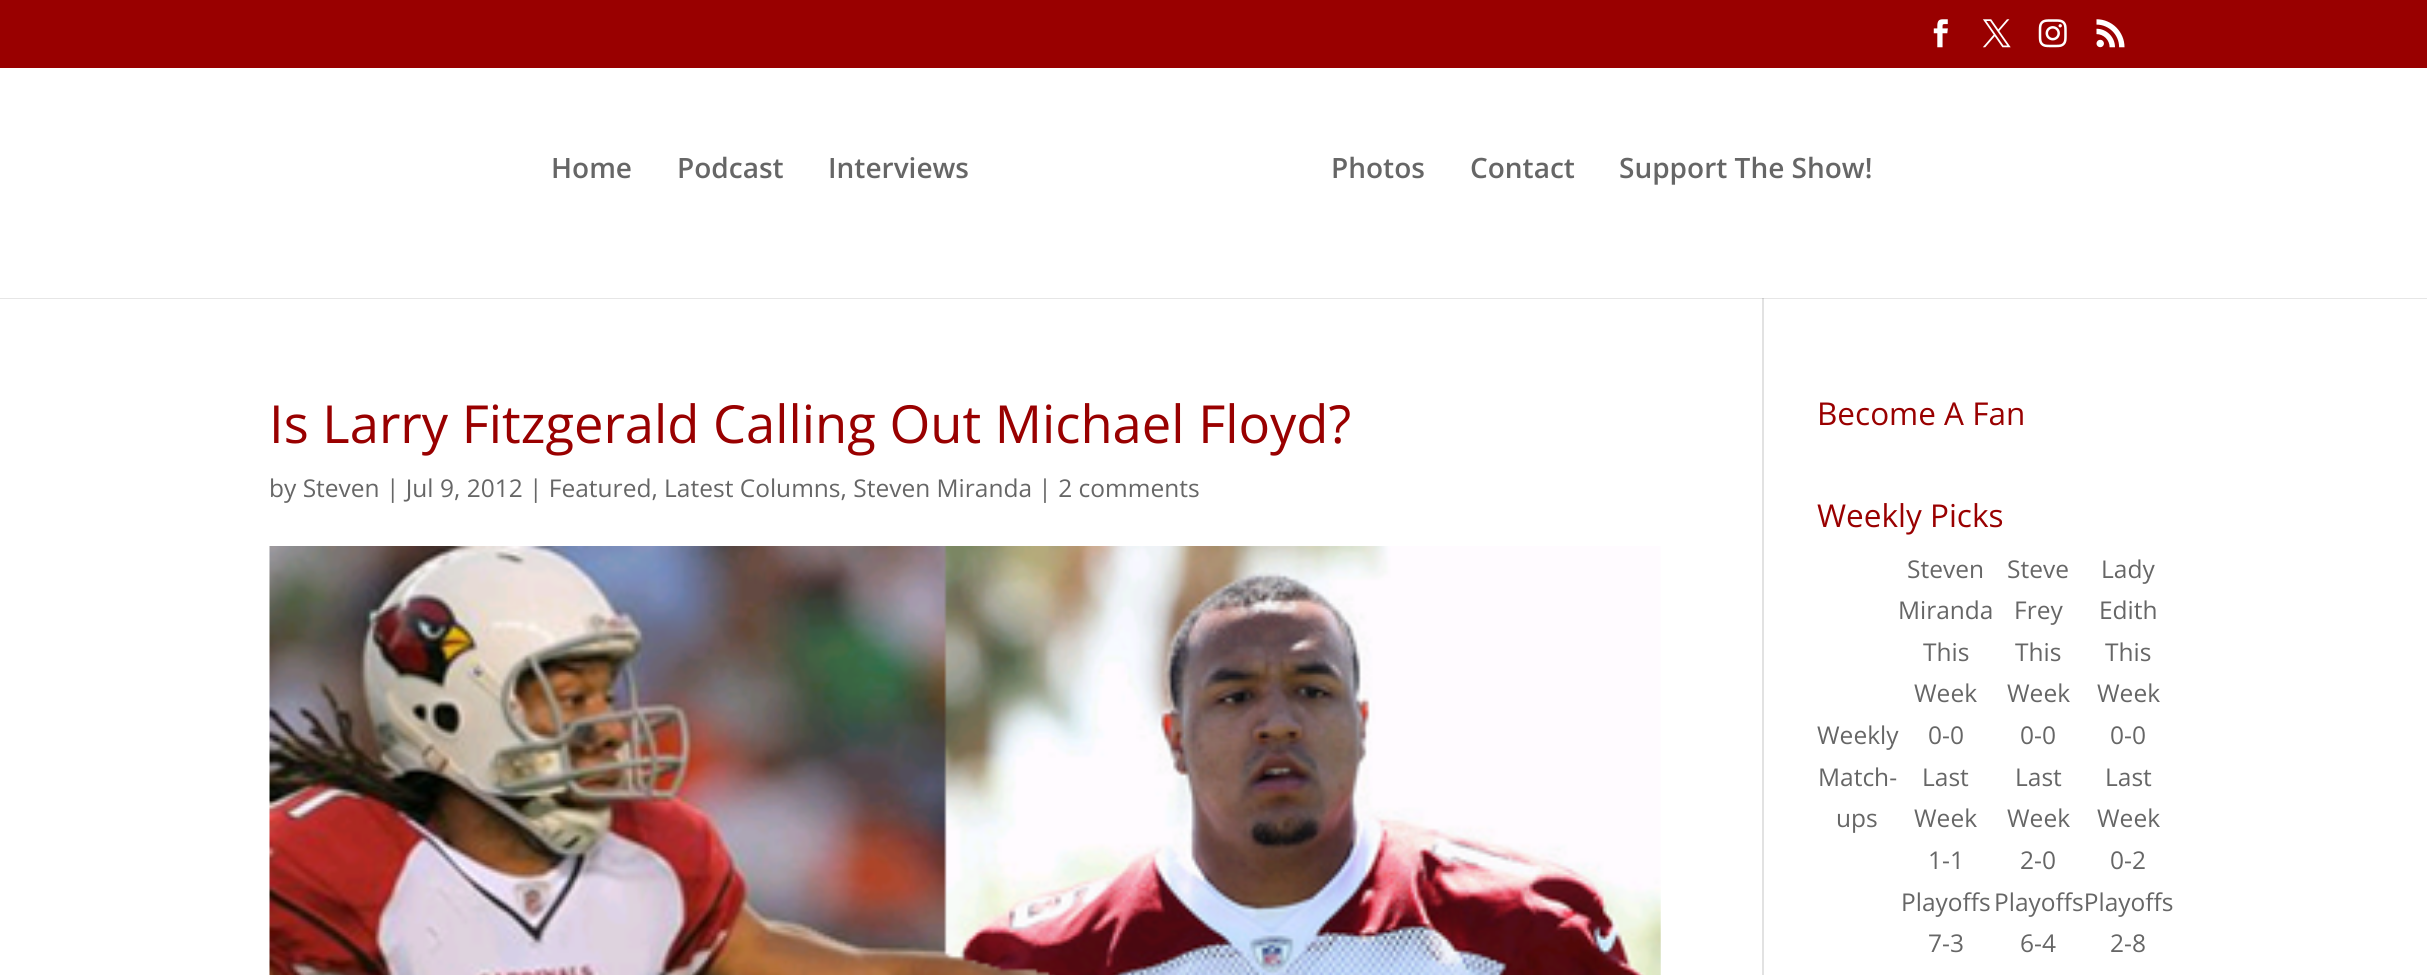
import math
import cairo

surface = cairo.ImageSurface(cairo.FORMAT_RGB24, 2427, 975)
c = cairo.Context(surface)
options = cairo.FontOptions()
options.set_hint_metrics(cairo.HINT_METRICS_OFF)
options.set_hint_style(cairo.HINT_STYLE_NONE)
c.set_font_options(options)
c.set_miter_limit(4)
def C(code):
 c.set_source_rgb(*(v / 255 for v in bytes.fromhex(code[-6:])))
def F(family, size, italic, bold):
 c.select_font_face(family, cairo.FONT_SLANT_ITALIC if italic else cairo.FONT_SLANT_NORMAL, cairo.FONT_WEIGHT_BOLD if bold else cairo.FONT_WEIGHT_NORMAL)
 c.set_font_size(size)
def T(x, y, s):
 c.move_to(x, y)
 c.show_text(s)
def R(x, y, w, h):
 c.rectangle(x, y, w, h)
 c.fill()
def I(path, x, y, w, h):
 c.save()
 c.set_source_surface(cairo.ImageSurface.create_from_png(path), x, y)
 c.rectangle(x, y, w, h)
 c.fill()
 c.restore()
C('ffffff')
c.paint()
C('990000')
R(0,0,2427,68)
I('1.png',1933,19,15,29)
I('2.png',1982,19,29,29)
I('3.png',2038,19,29,29)
I('4.png',2096,19,29,29)
C('e6e6e6')
R(0,298,2427,1)
C('e2e2e2')
R(1762,296,2,679)
C('ffffff')
R(1762,296,2,2)
F('Open Sans SemiBold',28,0,0)
C('666666')
T(551,178,'Home')
T(677,178,'Podcast')
T(828,178,'Interviews')
T(1331,178,'Photos')
T(1470,178,'Contact')
T(1619,178,'Support The Show!')
C('cbcbcb')
R(1762,298,2,1)
F('Open Sans',52.5,0,0)
C('990000')
T(269,443,'Is Larry Fitzgerald Calling Out Michael Floyd?')
F('Open Sans',24.5,0,0)
C('666666')
T(269,497,'by Steven | Jul 9, 2012 | Featured, Latest Columns, Steven Miranda | 2 comments')
I('5.png',269,546,1392,429)
F('Open Sans',31.5,0,0)
C('990000')
T(1817,425,'Become A Fan')
T(1817,527,'Weekly Picks')
F('Open Sans',24.5,0,0)
C('666666')
T(1907,578,'Steven')
T(1898,619,'Miranda')
T(2007,578,'Steve')
T(2014,619,'Frey')
T(2101,578,'Lady')
T(2099,619,'Edith')
T(1817,744,'Weekly')
T(1818,786,'Match-')
T(1836,827,'ups')
T(1923,661,'This')
T(1914,702,'Week')
T(2015,661,'This')
T(2007,702,'Week')
T(2105,661,'This')
T(2097,702,'Week')
T(1928,744,'0-0')
T(2020,744,'0-0')
T(2110,744,'0-0')
T(1922,786,'Last')
T(1914,827,'Week')
T(2015,786,'Last')
T(2007,827,'Week')
T(2105,786,'Last')
T(2097,827,'Week')
T(1928,869,'1-1')
T(2020,869,'2-0')
T(2110,869,'0-2')
T(1901,911,'Playoffs')
T(1994,911,'PlayoffsPlayoffs')
T(1928,952,'7-3')
T(2020,952,'6-4')
T(2110,952,'2-8')
surface.write_to_png('o.png')
